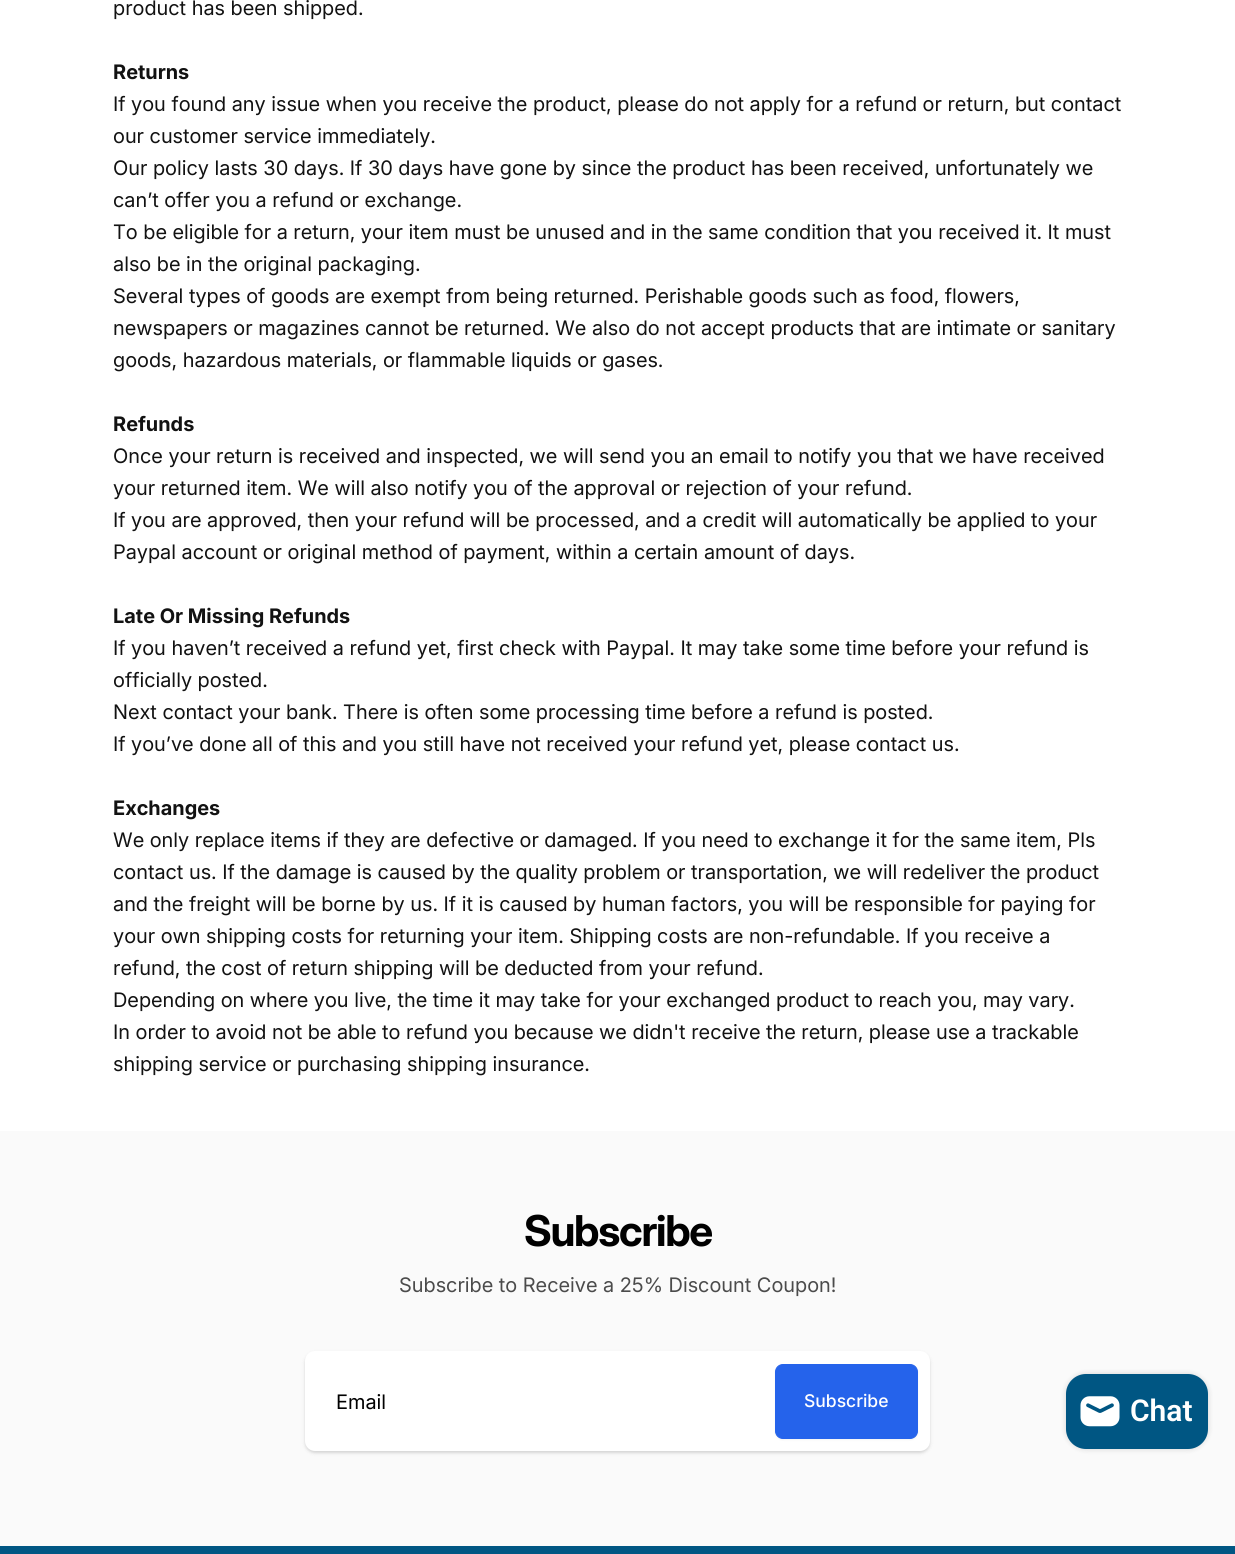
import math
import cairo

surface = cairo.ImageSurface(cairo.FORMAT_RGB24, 1235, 1554)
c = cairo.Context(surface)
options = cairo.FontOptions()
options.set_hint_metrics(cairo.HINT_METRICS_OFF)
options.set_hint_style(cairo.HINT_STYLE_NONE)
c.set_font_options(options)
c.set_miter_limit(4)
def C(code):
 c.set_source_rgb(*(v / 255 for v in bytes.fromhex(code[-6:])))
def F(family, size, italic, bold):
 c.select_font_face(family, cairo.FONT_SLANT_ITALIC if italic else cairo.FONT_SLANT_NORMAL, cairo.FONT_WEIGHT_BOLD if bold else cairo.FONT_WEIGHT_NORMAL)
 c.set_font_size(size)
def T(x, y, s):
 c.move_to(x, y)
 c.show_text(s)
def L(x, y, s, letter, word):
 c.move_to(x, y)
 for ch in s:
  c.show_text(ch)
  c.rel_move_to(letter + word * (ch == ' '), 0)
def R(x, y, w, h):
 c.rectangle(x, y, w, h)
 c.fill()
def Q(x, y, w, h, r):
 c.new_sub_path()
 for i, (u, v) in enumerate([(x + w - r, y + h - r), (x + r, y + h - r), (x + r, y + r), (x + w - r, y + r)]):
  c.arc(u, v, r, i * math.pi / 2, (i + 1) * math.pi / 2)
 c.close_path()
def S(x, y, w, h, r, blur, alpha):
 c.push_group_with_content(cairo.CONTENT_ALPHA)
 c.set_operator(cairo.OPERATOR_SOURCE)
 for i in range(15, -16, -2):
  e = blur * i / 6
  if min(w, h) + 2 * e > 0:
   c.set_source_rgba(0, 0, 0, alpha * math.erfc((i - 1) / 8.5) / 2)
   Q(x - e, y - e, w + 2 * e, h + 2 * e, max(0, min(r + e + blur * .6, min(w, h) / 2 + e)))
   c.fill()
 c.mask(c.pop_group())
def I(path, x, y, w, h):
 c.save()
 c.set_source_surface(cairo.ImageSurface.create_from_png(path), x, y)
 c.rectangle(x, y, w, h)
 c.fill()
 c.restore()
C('ffffff')
c.paint()
F('Inter',20,0,0)
C('121212')
T(113,15,'product has been shipped.')
F('Inter',20,0,1)
T(113,79,'Returns')
F('Inter',20,0,0)
T(113,111,'If you found any issue when you receive the product, please do not apply for a refund or return, but contact')
T(113,143,'our customer service immediately.')
T(113,175,'Our policy lasts 30 days. If 30 days have gone by since the product has been received, unfortunately we')
T(113,207,'can’t offer you a refund or exchange.')
T(113,239,'To be eligible for a return, your item must be unused and in the same condition that you received it. It must')
T(113,271,'also be in the original packaging.')
T(113,303,'Several types of goods are exempt from being returned. Perishable goods such as food, flowers,')
T(113,335,'newspapers or magazines cannot be returned. We also do not accept products that are intimate or sanitary')
T(113,367,'goods, hazardous materials, or flammable liquids or gases.')
F('Inter',20,0,1)
T(113,431,'Refunds')
F('Inter',20,0,0)
T(113,463,'Once your return is received and inspected, we will send you an email to notify you that we have received')
T(113,495,'your returned item. We will also notify you of the approval or rejection of your refund.')
T(113,527,'If you are approved, then your refund will be processed, and a credit will automatically be applied to your')
T(113,559,'Paypal account or original method of payment, within a certain amount of days.')
F('Inter',20,0,1)
T(113,623,'Late Or Missing Refunds')
F('Inter',20,0,0)
T(113,655,'If you haven’t received a refund yet, first check with Paypal. It may take some time before your refund is')
T(113,687,'officially posted.')
T(113,719,'Next contact your bank. There is often some processing time before a refund is posted.')
T(113,751,'If you’ve done all of this and you still have not received your refund yet, please contact us.')
F('Inter',20,0,1)
T(113,815,'Exchanges')
F('Inter',20,0,0)
T(113,847,'We only replace items if they are defective or damaged. If you need to exchange it for the same item, Pls')
T(113,879,'contact us. If the damage is caused by the quality problem or transportation, we will redeliver the product')
T(113,911,'and the freight will be borne by us. If it is caused by human factors, you will be responsible for paying for')
T(113,943,'your own shipping costs for returning your item. Shipping costs are non-refundable. If you receive a')
T(113,975,'refund, the cost of return shipping will be deducted from your refund.')
T(113,1007,'Depending on where you live, the time it may take for your exchanged product to reach you, may vary.')
T(113,1039,'In order to avoid not be able to refund you because we didn\'t receive the return, please use a trackable')
T(113,1071,'shipping service or purchasing shipping insurance.')
C('fafafa')
R(0,1131,1235,415)
F('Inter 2',42.5,0,1)
C('000000')
L(524,1246,'Subscribe',-1.25,0)
F('Inter',20,0,0)
C('4b4b4b')
T(399,1292,'Subscribe to Receive a 25% Discount Coupon!')
C('000000')
S(305,1353,625,100,10,2,.1)
S(305,1353,625,100,10,1,.06)
C('ffffff')
Q(305,1351,625,100,10)
c.fill()
C('000000')
T(336,1409,'Email')
C('000000')
S(775,1365,143,75,8,1,.05)
C('2563eb')
Q(775.5,1364.5,142,74,7.5)
c.fill_preserve()
c.set_line_width(1)
c.stroke()
F('Inter Medium',17.5,0,0)
C('ffffff')
T(804,1407,'Subscribe')
C('000000')
S(1066,1374,142,75,20,3,.15)
C('005683')
Q(1066,1374,142,75,20)
c.fill()
I('1.png',1080,1396,40,31)
F('Roboto SemiBold',30,0,0)
C('ffffff')
T(1130,1421,'Chat')
C('005683')
R(0,1546,1235,8)
surface.write_to_png('o.png')
